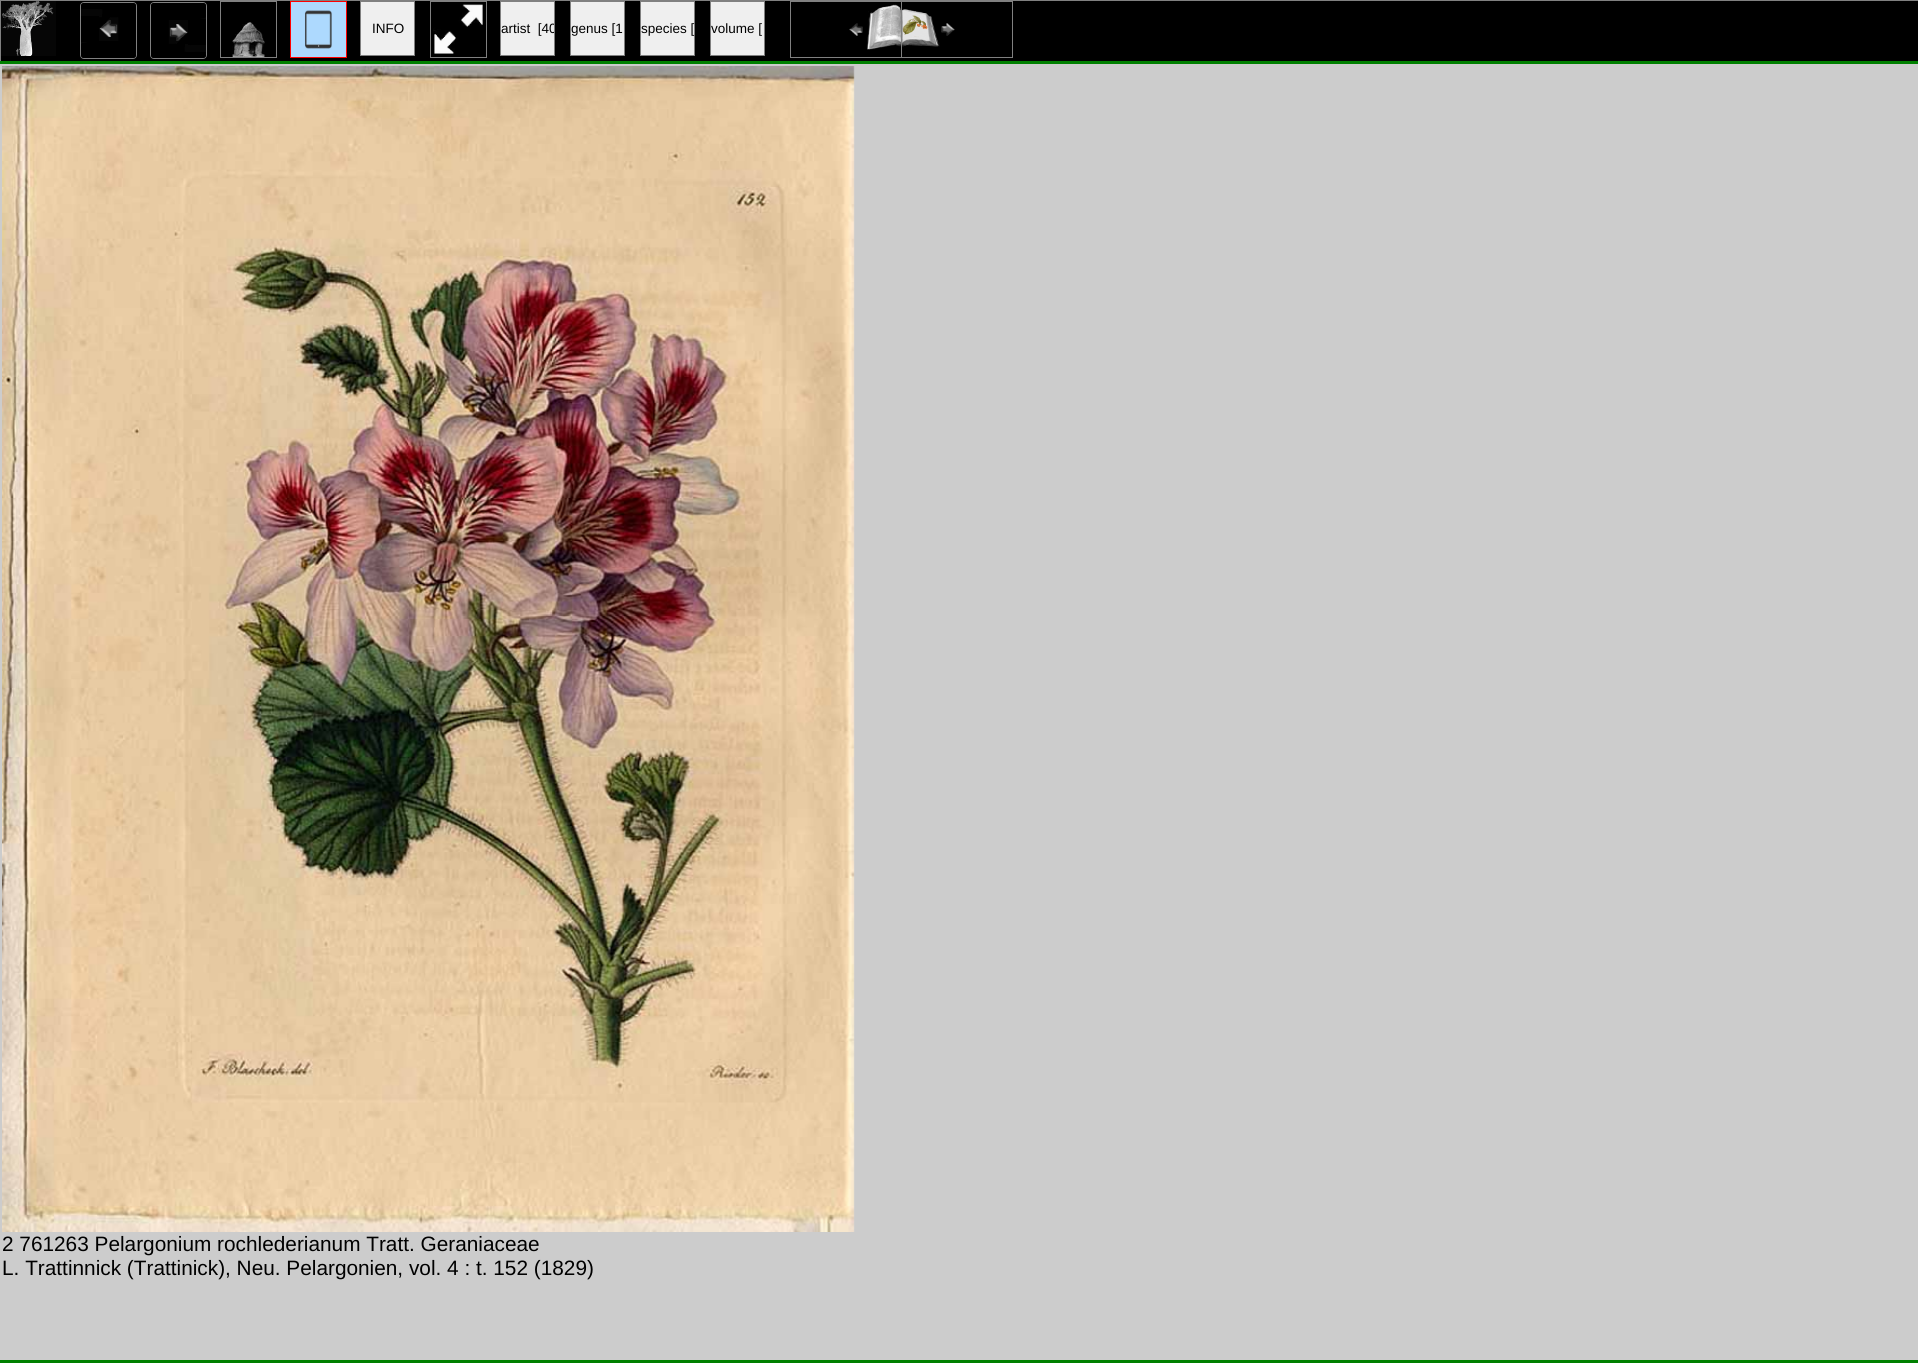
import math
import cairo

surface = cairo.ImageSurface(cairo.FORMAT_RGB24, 1918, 1363)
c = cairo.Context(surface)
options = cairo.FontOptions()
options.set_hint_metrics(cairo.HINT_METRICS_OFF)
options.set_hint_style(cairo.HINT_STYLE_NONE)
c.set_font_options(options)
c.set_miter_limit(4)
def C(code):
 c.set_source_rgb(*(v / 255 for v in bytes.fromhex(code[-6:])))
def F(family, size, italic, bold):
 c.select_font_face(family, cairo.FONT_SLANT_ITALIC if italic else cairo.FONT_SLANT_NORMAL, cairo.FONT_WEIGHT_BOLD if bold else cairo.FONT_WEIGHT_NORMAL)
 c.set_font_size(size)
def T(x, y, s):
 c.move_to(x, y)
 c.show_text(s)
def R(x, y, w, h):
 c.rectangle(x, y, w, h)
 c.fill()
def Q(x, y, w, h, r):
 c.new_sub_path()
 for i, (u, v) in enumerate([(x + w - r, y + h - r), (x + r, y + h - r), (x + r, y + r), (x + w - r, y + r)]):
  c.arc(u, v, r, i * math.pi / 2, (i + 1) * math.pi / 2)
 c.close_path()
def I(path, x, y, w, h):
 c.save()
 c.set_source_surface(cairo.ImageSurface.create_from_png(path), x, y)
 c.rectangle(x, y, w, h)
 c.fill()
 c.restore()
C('cccccc')
c.paint()
C('000000')
c.rectangle(.5,.5,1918,61)
c.fill_preserve()
C('808080')
c.set_line_width(1)
c.stroke()
I('1.png',1,1,55,55)
Q(80.5,2.5,56,56,3.5)
c.stroke()
I('2.png',81,3,55,55)
Q(150.5,2.5,56,56,3.5)
c.stroke()
I('3.png',151,3,55,55)
c.rectangle(220.5,1.5,56,56)
c.stroke()
I('4.png',232,22,33,35)
c.rectangle(290.5,1.5,56,56)
C('ff0000')
c.stroke()
I('5.png',291,2,55,55)
C('efefef')
c.rectangle(360.5,1.5,54,54)
c.fill_preserve()
C('808080')
c.stroke()
F('Liberation Sans',13.5,0,0)
C('000000')
T(372,33,'INFO')
c.rectangle(430.5,1.5,56,56)
C('808080')
c.stroke()
I('6.png',433,4,50,50)
C('efefef')
c.rectangle(500.5,1.5,54,54)
c.fill_preserve()
C('808080')
c.stroke()
c.save()
c.rectangle(501,2,53,53)
c.clip()
C('000000')
T(501,33,'artist  [40')
c.restore()
C('efefef')
c.rectangle(570.5,1.5,54,54)
c.fill_preserve()
C('808080')
c.stroke()
C('000000')
T(571,33,'genus [1')
C('efefef')
c.rectangle(640.5,1.5,54,54)
c.fill_preserve()
C('808080')
c.stroke()
C('000000')
T(641,33,'species [')
C('efefef')
c.rectangle(710.5,1.5,54,54)
c.fill_preserve()
C('808080')
c.stroke()
C('000000')
T(711,33,'volume [')
c.rectangle(790.5,1.5,111,56)
C('808080')
c.stroke()
I('7.png',849,4,52,46)
c.rectangle(901.5,1.5,111,56)
c.stroke()
I('8.png',902,9,53,38)
C('008000')
R(0,61,1918,3)
R(0,1360,1918,3)
I('9.png',2,66,853,1166)
F('Liberation Sans',20.8,0,0)
C('000000')
T(2,1251,'2 761263 Pelargonium rochlederianum Tratt. Geraniaceae')
T(2,1275,'L. Trattinnick (Trattinick), Neu. Pelargonien, vol. 4 : t. 152 (1829)')
surface.write_to_png('o.png')
